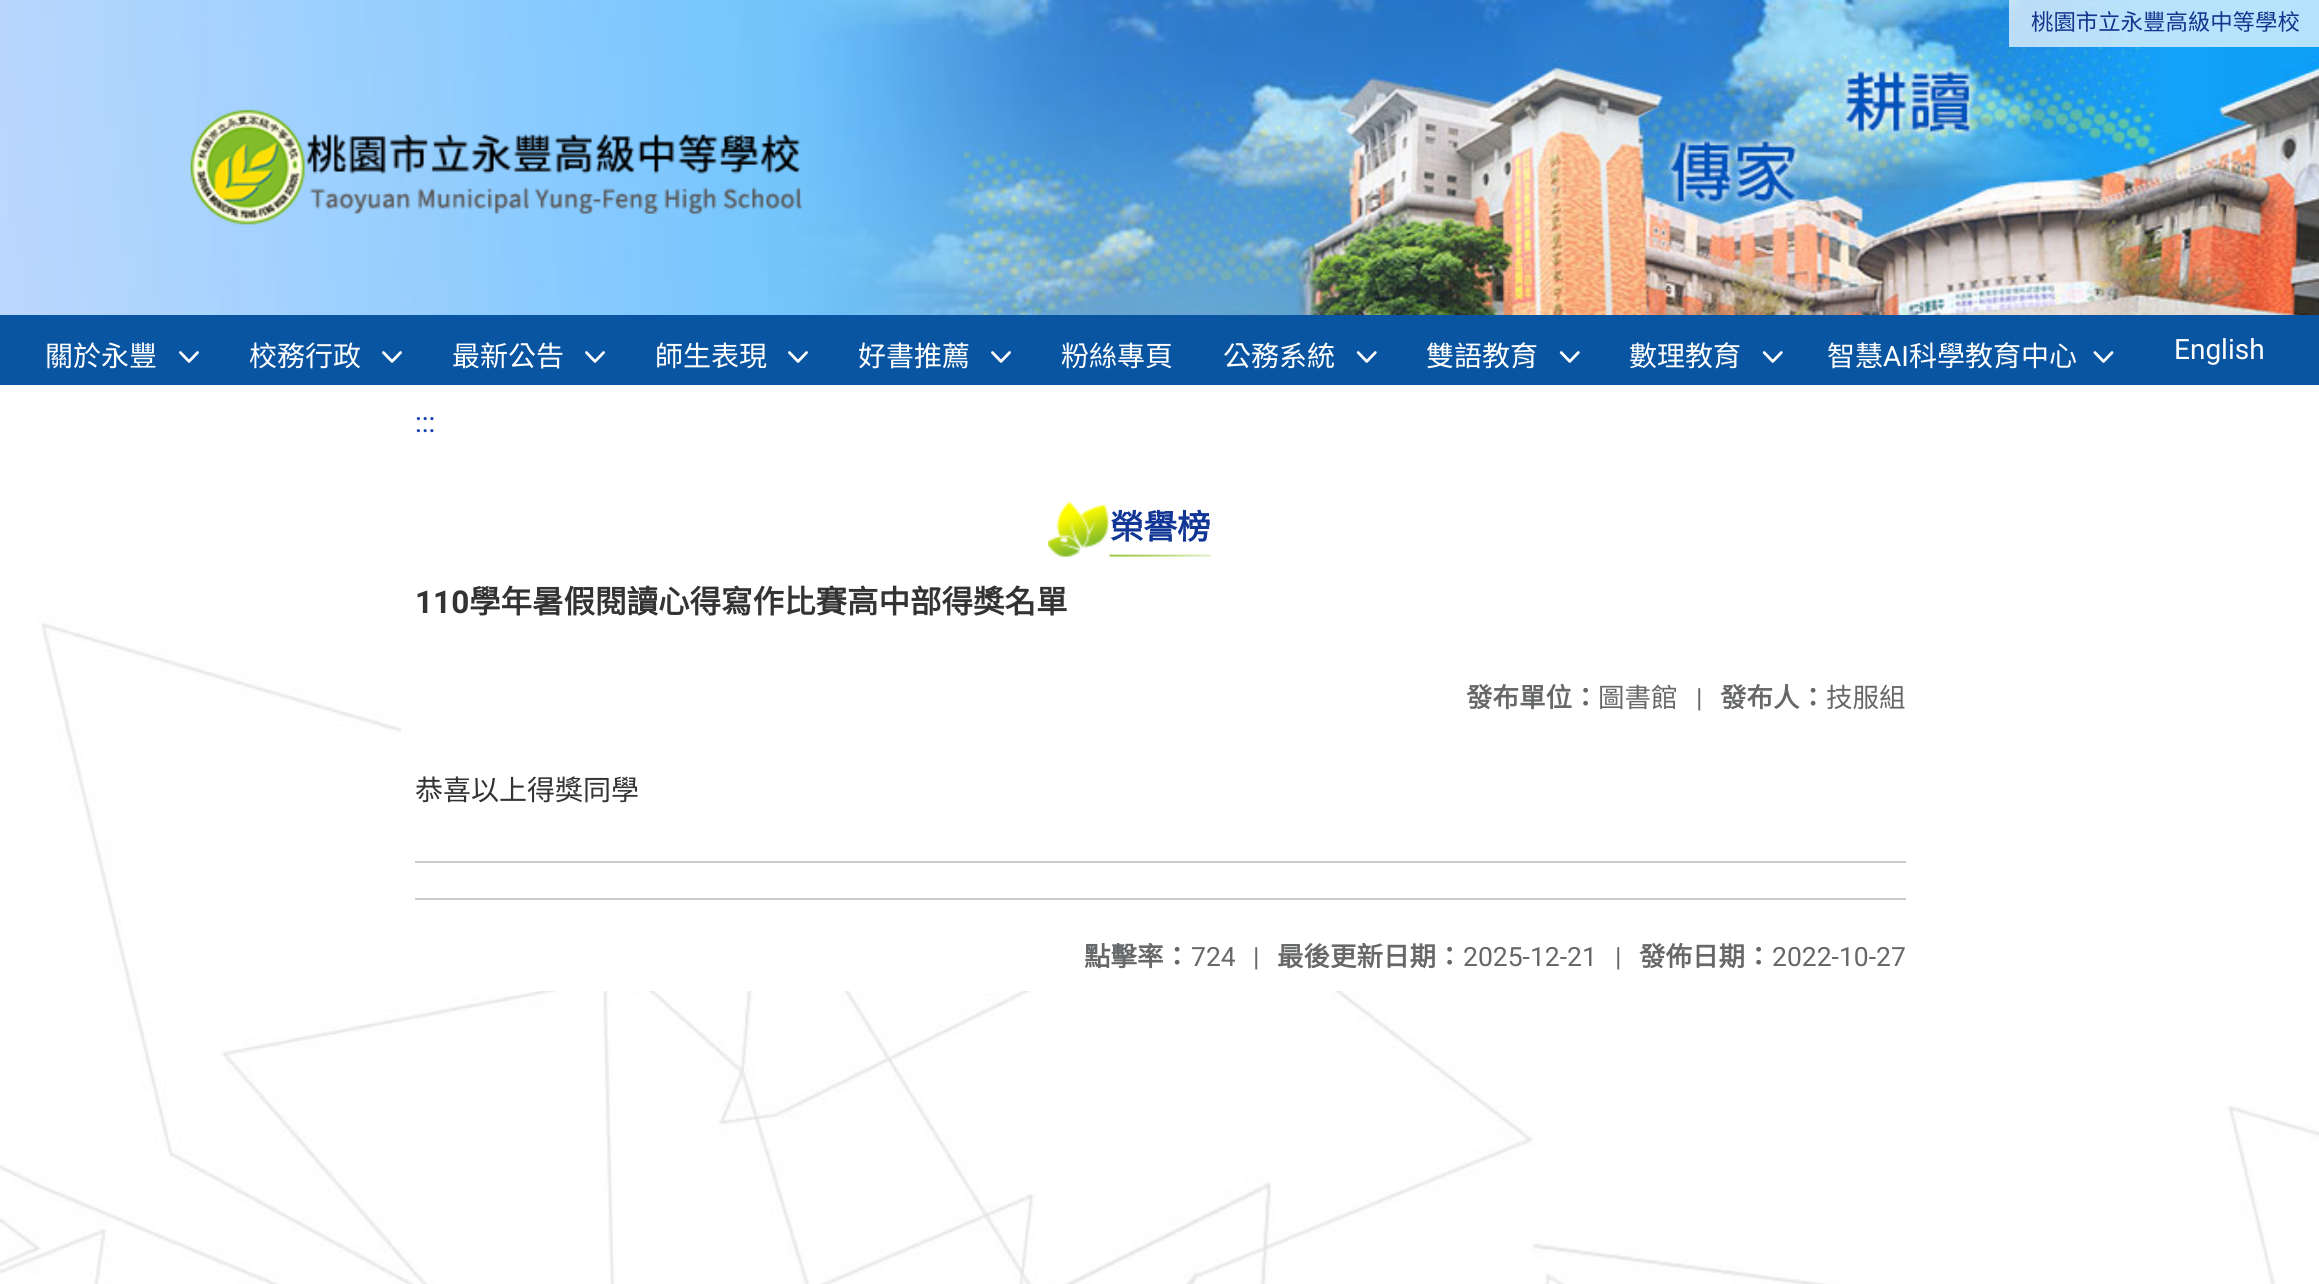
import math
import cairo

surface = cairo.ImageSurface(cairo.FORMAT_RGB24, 2319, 1284)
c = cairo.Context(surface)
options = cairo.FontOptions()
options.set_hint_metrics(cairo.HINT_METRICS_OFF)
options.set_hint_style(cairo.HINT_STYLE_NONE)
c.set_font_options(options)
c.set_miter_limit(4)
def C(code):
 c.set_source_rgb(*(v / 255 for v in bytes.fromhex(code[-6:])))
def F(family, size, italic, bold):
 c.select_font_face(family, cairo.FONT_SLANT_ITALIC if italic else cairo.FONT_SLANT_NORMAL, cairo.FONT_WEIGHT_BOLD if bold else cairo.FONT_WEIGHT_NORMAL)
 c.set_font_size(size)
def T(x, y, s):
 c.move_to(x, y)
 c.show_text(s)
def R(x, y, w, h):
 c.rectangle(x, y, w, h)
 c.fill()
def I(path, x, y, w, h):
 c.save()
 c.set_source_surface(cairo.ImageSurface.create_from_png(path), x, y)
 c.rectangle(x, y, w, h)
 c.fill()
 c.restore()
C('ffffff')
c.paint()
I('1.png',0,385,2319,899)
I('2.png',0,0,2319,315)
I('3.png',190,109,612,116)
c.set_source_rgba(1,1,1,0.7)
R(2009,0,310,47)
F('Noto Sans CJK TC',22.4,0,0)
C('13358c')
T(2031,30,'桃園市立永豐高級中等學校')
C('0955a2')
R(0,315,2319,70)
F('Noto Sans CJK TC',28,0,0)
C('ffffff')
T(45,366,'關於永豐')
I('4.png',179,351,20,12)
T(249,366,'校務行政')
I('4.png',382,351,20,12)
T(452,366,'最新公告')
I('4.png',585,351,20,12)
T(655,366,'師生表現')
I('4.png',788,351,20,12)
T(858,366,'好書推薦')
I('4.png',991,351,20,12)
T(1061,366,'粉絲專頁')
T(1223,366,'公務系統')
I('5.png',1356,351,21,12)
T(1426,366,'雙語教育')
I('5.png',1559,351,21,12)
T(1629,366,'數理教育')
I('5.png',1762,351,21,12)
T(1827,366,'智慧')
F('Roboto',28,0,0)
T(1883,366,'AI')
F('Noto Sans CJK TC',28,0,0)
T(1909,366,'科學教育中心')
I('6.png',2093,351,21,12)
F('Roboto',28,0,0)
T(2174,359,'English')
C('1742b1')
T(415,432,':::')
C('ffffff')
R(401,725,943,266)
I('7.png',1109,554,102,3)
I('8.png',1048,501,61,56)
F('Noto Sans CJK TC',33.5,0,1)
C('113695')
T(1110,539,'榮譽榜')
F('Roboto',31.5,0,1)
C('333333')
T(415,613,'110')
F('Noto Sans CJK TC',31.5,0,1)
T(469,613,'學年暑假閱讀心得寫作比賽高中部得獎名單')
F('Noto Sans CJK TC',26.5,0,1)
C('656769')
T(1466,707,'發布單位：')
F('Noto Sans CJK TC',26.5,0,0)
T(1598,707,'圖書館')
F('Roboto',26.5,0,0)
T(1696,707,'|')
F('Noto Sans CJK TC',26.5,0,1)
T(1720,707,'發布人：')
F('Noto Sans CJK TC',26.5,0,0)
T(1826,707,'技服組')
F('Noto Sans CJK TC',28,0,0)
C('333333')
T(415,800,'恭喜以上得獎同學')
C('cccccc')
R(415,861,1491,2)
R(415,898,1491,2)
F('Noto Sans CJK TC',26.5,0,1)
C('656769')
T(1084,966,'點擊率：')
F('Roboto',26.5,0,0)
T(1191,966,'724')
T(1253,966,'|')
F('Noto Sans CJK TC',26.5,0,1)
T(1277,966,'最後更新日期：')
F('Roboto',26.5,0,0)
T(1463,966,'2025-12-21')
T(1615,966,'|')
F('Noto Sans CJK TC',26.5,0,1)
T(1639,966,'發佈日期：')
F('Roboto',26.5,0,0)
T(1772,966,'2022-10-27')
surface.write_to_png('o.png')
